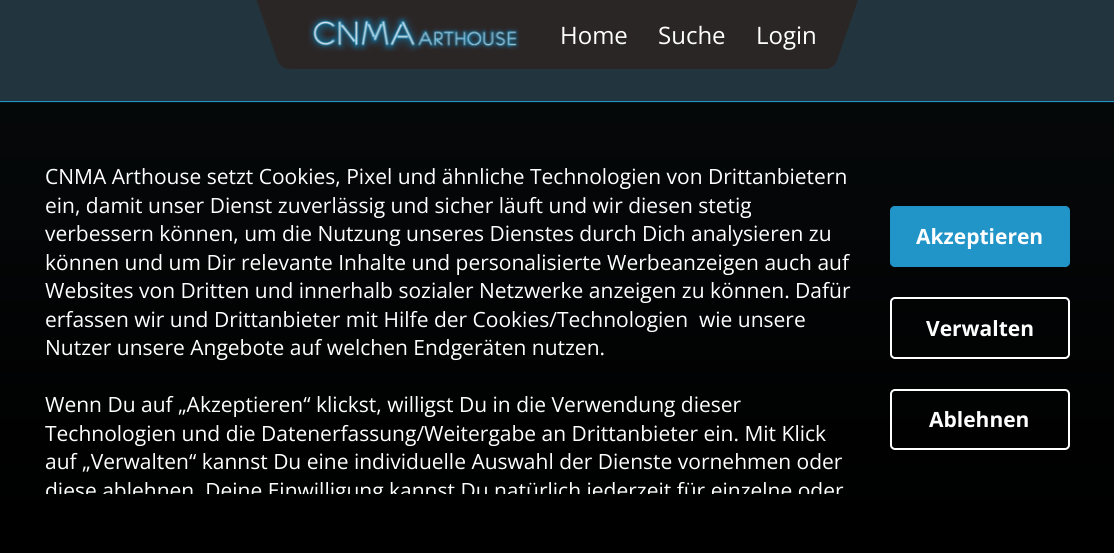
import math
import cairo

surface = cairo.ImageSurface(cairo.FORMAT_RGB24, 1114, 553)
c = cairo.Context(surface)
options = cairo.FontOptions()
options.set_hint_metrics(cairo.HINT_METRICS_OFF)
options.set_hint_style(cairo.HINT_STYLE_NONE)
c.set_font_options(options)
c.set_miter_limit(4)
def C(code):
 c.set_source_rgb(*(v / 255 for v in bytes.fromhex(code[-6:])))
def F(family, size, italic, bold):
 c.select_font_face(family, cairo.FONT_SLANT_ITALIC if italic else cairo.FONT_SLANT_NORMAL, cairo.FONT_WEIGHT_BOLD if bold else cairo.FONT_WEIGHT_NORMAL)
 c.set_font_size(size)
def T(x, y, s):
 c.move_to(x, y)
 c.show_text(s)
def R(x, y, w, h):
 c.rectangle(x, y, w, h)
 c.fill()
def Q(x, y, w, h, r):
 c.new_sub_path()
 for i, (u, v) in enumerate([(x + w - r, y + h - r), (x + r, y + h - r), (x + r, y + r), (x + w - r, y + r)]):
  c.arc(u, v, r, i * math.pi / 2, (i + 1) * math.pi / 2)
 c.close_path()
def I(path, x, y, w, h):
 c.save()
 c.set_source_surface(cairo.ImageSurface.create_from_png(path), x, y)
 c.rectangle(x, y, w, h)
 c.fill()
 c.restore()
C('22353e')
c.paint()
C('2b2626')
R(294,0,527,69)
I('1.png',256,0,38,69)
I('2.png',308,15,212,37)
F('Open Sans',24,0,0)
C('ffffff')
T(560,44,'Home')
T(658,44,'Suche')
T(756,44,'Login')
I('3.png',821,0,37,69)
C('2194c8')
R(0,101,1114,2)
gradient = cairo.LinearGradient(557,222,557,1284)
gradient.add_color_stop_rgba(0,0.133,0.208,0.243,1)
gradient.add_color_stop_rgba(.5,0,0,0,1)
gradient.add_color_stop_rgba(1,0,0,0,1)
c.set_source(gradient)
R(0,243,1114,293)
gradient = cairo.LinearGradient(557,102,557,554)
gradient.add_color_stop_rgba(0,0,0,0,.85)
gradient.add_color_stop_rgba(1,0,0,0,1)
c.set_source(gradient)
R(0,102,1114,451)
F('Open Sans',21,0,0)
C('ffffff')
T(45,184,'CNMA Arthouse setzt Cookies, Pixel und ähnliche Technologien von Drittanbietern')
T(45,213,'ein, damit unser Dienst zuverlässig und sicher läuft und wir diesen stetig')
T(45,241,'verbessern können, um die Nutzung unseres Dienstes durch Dich analysieren zu')
T(45,270,'können und um Dir relevante Inhalte und personalisierte Werbeanzeigen auch auf')
T(45,298,'Websites von Dritten und innerhalb sozialer Netzwerke anzeigen zu können. Dafür')
T(45,327,'erfassen wir und Drittanbieter mit Hilfe der Cookies/Technologien  wie unsere')
T(45,355,'Nutzer unsere Angebote auf welchen Endgeräten nutzen.')
T(45,412,'Wenn Du auf „Akzeptieren“ klickst, willigst Du in die Verwendung dieser')
T(45,441,'Technologien und die Datenerfassung/Weitergabe an Drittanbieter ein. Mit Klick')
T(45,469,'auf „Verwalten“ kannst Du eine individuelle Auswahl der Dienste vornehmen oder')
c.save()
c.rectangle(45,162,815,332)
c.clip()
T(45,498,'diese ablehnen. Deine Einwilligung kannst Du natürlich jederzeit für einzelne oder')
c.restore()
C('2194c8')
Q(890,206,180,61,5)
c.fill()
Q(891,207,178,59,4)
c.set_source_rgba(0.129,0.58,0.784,0.5)
c.stroke()
F('Open Sans',21,0,1)
C('ffffff')
T(916,244,'Akzeptieren')
Q(891,298,178,60,4)
c.stroke()
T(926,336,'Verwalten')
Q(891,390,178,59,4)
c.stroke()
T(929,427,'Ablehnen')
surface.write_to_png('o.png')
